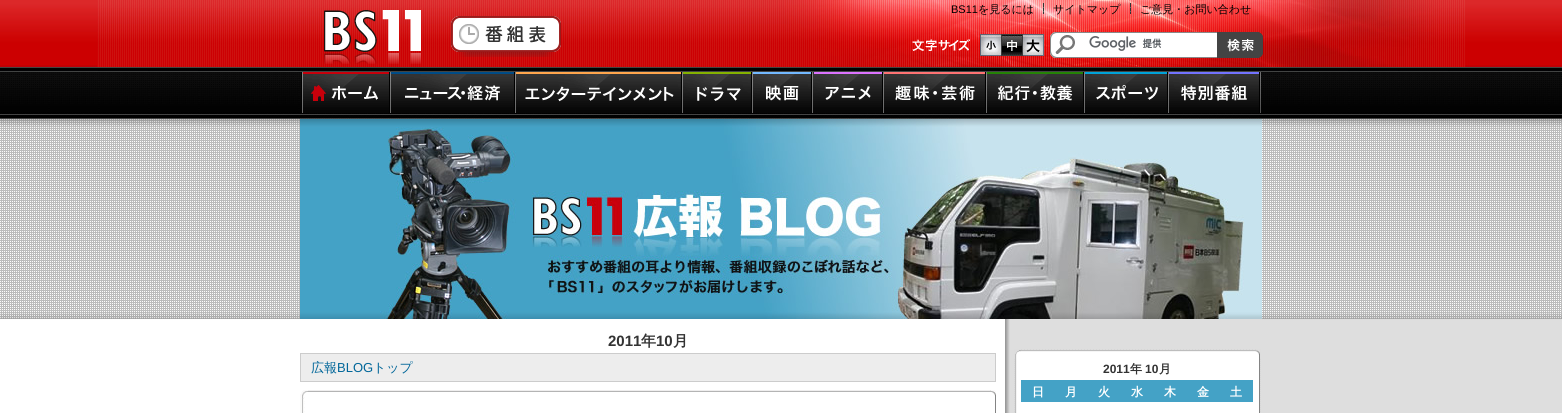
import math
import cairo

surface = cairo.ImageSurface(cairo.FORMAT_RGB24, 1562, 413)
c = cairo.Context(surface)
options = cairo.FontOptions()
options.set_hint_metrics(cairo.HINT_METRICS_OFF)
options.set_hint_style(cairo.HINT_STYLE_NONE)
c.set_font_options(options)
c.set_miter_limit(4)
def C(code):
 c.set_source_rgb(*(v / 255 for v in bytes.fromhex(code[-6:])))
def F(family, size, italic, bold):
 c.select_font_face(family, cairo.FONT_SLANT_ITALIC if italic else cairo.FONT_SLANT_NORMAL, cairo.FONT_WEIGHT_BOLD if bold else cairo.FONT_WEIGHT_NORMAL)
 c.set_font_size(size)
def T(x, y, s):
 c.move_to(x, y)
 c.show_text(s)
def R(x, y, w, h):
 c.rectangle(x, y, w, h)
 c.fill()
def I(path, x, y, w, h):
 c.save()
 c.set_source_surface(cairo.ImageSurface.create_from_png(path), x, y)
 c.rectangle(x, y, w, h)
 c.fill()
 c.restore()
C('ffffff')
c.paint()
I('1.png',0,319,1562,94)
I('2.png',0,0,1562,319)
I('3.png',97,0,1368,67)
I('4.png',324,10,97,54)
I('5.png',458,52,96,5)
I('6.png',451,16,110,36)
F('Liberation Sans',11,0,0)
C('000000')
T(951,13,'BS11')
F('WenQuanYi Zen Hei Medium',11,0,0)
T(978,13,'を見るには')
I('7.png',1043,3,1,11)
T(1053,13,'サイトマップ')
I('7.png',1130,3,1,11)
T(1140,13,'ご意見・お問い合わせ')
I('8.png',912,39,58,12)
I('9.png',980,34,21,22)
I('10.png',1001,34,22,22)
I('11.png',1023,34,21,22)
I('12.png',1050,32,167,26)
I('13.png',1089,36,73,15)
I('14.png',1217,32,46,26)
I('15.png',301,72,89,41)
I('16.png',390,72,125,41)
I('17.png',515,72,167,41)
I('18.png',682,72,70,41)
I('19.png',752,72,60,41)
I('20.png',812,72,71,41)
I('21.png',883,72,103,41)
I('22.png',986,72,98,41)
I('23.png',1084,72,84,41)
I('24.png',1168,72,93,41)
I('25.png',300,119,962,200)
F('Liberation Sans',15,0,1)
C('333333')
T(608,346,'2011')
F('WenQuanYi Zen Hei',15,0,1)
T(641,346,'年')
F('Liberation Sans',15,0,1)
T(656,346,'10')
F('WenQuanYi Zen Hei',15,0,1)
T(673,346,'月')
C('ededed')
c.rectangle(300.5,353.5,695,28)
c.fill_preserve()
C('cccccc')
c.set_line_width(1)
c.stroke()
F('WenQuanYi Zen Hei Medium',13,0,0)
C('006699')
T(311,372,'広報')
F('Liberation Sans',13,0,0)
T(337,372,'BLOG')
F('WenQuanYi Zen Hei Medium',13,0,0)
T(373,372,'トップ')
I('26.png',300,399,696,14)
I('27.png',300,390,696,9)
I('28.png',1014,358,247,55)
I('29.png',1014,349,247,9)
F('Liberation Sans',12,0,1)
C('333333')
T(1103,373,'2011')
F('WenQuanYi Zen Hei',12,0,1)
T(1130,373,'年')
F('Liberation Sans',12,0,1)
T(1145,373,'10')
F('WenQuanYi Zen Hei',12,0,1)
T(1159,373,'月')
C('44a2c6')
R(1021,380,232,22)
C('ffffff')
T(1032,396,'日')
T(1065,396,'月')
T(1098,396,'火')
T(1131,396,'水')
T(1164,396,'木')
T(1197,396,'金')
T(1230,396,'土')
surface.write_to_png('o.png')
